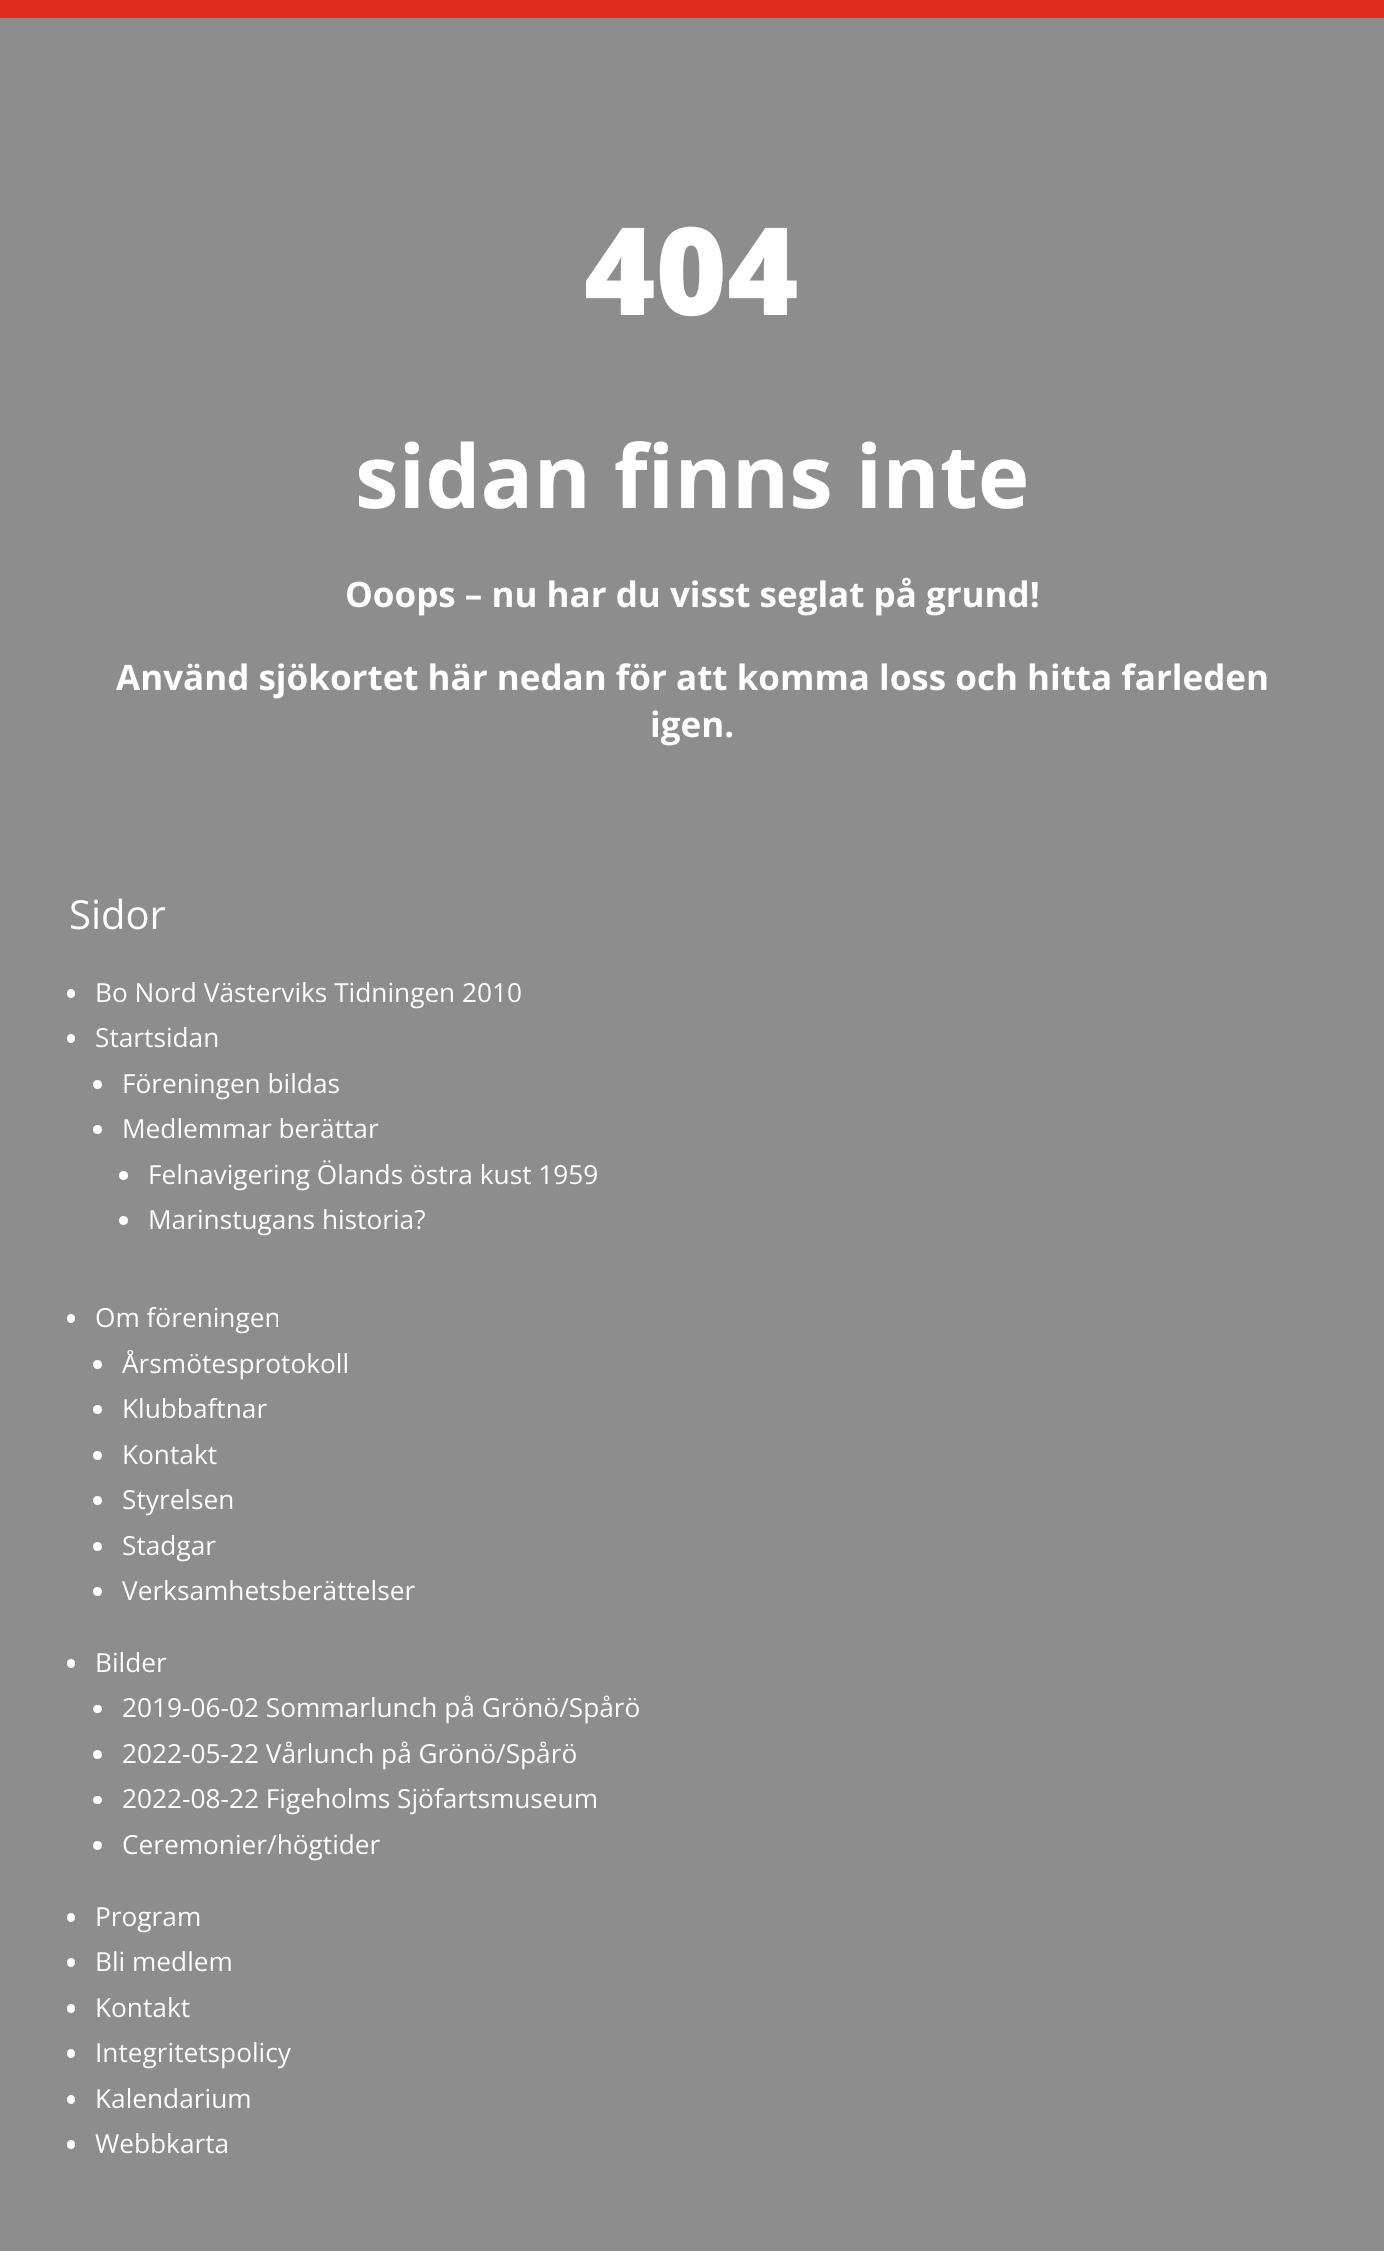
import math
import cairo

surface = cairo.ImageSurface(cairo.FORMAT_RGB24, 1384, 2251)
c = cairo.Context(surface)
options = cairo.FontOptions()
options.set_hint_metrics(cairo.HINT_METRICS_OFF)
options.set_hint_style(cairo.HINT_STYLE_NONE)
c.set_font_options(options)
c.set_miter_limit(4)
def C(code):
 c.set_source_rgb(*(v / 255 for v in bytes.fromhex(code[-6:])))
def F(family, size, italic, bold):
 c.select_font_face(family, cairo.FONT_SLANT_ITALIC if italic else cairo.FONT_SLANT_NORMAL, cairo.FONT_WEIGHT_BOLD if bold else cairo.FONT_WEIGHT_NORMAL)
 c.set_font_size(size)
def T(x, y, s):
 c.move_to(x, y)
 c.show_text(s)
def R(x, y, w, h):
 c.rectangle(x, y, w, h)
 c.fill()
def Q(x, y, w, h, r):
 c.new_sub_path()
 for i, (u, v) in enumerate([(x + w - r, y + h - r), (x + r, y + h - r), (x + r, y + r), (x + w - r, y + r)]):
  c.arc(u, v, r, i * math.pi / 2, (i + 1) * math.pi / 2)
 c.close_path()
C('8d8d8d')
c.paint()
C('e02b20')
R(0,0,1384,18)
F('Open Sans ExtraBold',122,0,0)
C('ffffff')
T(584,315,'404')
F('Open Sans',87.5,0,1)
T(355,508,'sidan finns inte')
F('Open Sans',35,0,1)
T(345,607,'Ooops – nu har du visst seglat på grund!')
T(116,690,'Använd sjökortet här nedan för att komma loss och hitta farleden')
T(650,737,'igen.')
F('Open Sans',40,0,0)
T(69,929,'Sidor')
Q(67,989,8,9,4)
c.fill()
F('Open Sans',26.25,0,0)
T(95,1002,'Bo Nord Västerviks Tidningen 2010')
Q(67,1034,8,9,4)
c.fill()
T(95,1047,'Startsidan')
c.new_path()
c.arc(97.5,1084.5,4.5,0,2 * math.pi)
c.fill()
T(122,1093,'Föreningen bildas')
c.new_path()
c.arc(97.5,1129.5,4.5,0,2 * math.pi)
c.fill()
T(122,1138,'Medlemmar berättar')
c.new_path()
c.arc(123.5,1175.5,4.5,0,2 * math.pi)
c.fill()
T(148,1184,'Felnavigering Ölands östra kust 1959')
c.new_path()
c.arc(123.5,1220.5,4.5,0,2 * math.pi)
c.fill()
T(148,1229,'Marinstugans historia?')
Q(67,1314,8,9,4)
c.fill()
T(95,1327,'Om föreningen')
c.new_path()
c.arc(97.5,1364.5,4.5,0,2 * math.pi)
c.fill()
T(122,1373,'Årsmötesprotokoll')
c.new_path()
c.arc(97.5,1409.5,4.5,0,2 * math.pi)
c.fill()
T(122,1418,'Klubbaftnar')
c.new_path()
c.arc(97.5,1455.5,4.5,0,2 * math.pi)
c.fill()
T(122,1464,'Kontakt')
c.new_path()
c.arc(97.5,1500.5,4.5,0,2 * math.pi)
c.fill()
T(122,1509,'Styrelsen')
c.new_path()
c.arc(97.5,1546.5,4.5,0,2 * math.pi)
c.fill()
T(122,1555,'Stadgar')
c.new_path()
c.arc(97.5,1591.5,4.5,0,2 * math.pi)
c.fill()
T(122,1600,'Verksamhetsberättelser')
Q(67,1659,8,9,4)
c.fill()
T(95,1672,'Bilder')
Q(93,1705,9,8,4)
c.fill()
T(122,1717,'2019-06-02 Sommarlunch på Grönö/Spårö')
c.new_path()
c.arc(97.5,1754.5,4.5,0,2 * math.pi)
c.fill()
T(122,1763,'2022-05-22 Vårlunch på Grönö/Spårö')
Q(93,1796,9,8,4)
c.fill()
T(122,1808,'2022-08-22 Figeholms Sjöfartsmuseum')
c.new_path()
c.arc(97.5,1845.5,4.5,0,2 * math.pi)
c.fill()
T(122,1854,'Ceremonier/högtider')
Q(67,1913,8,9,4)
c.fill()
T(95,1926,'Program')
Q(67,1958,8,9,4)
c.fill()
T(95,1971,'Bli medlem')
Q(67,2004,8,9,4)
c.fill()
T(95,2017,'Kontakt')
Q(67,2049,8,9,4)
c.fill()
T(95,2062,'Integritetspolicy')
Q(67,2095,8,9,4)
c.fill()
T(95,2108,'Kalendarium')
Q(67,2140,8,9,4)
c.fill()
T(95,2153,'Webbkarta')
surface.write_to_png('o.png')
